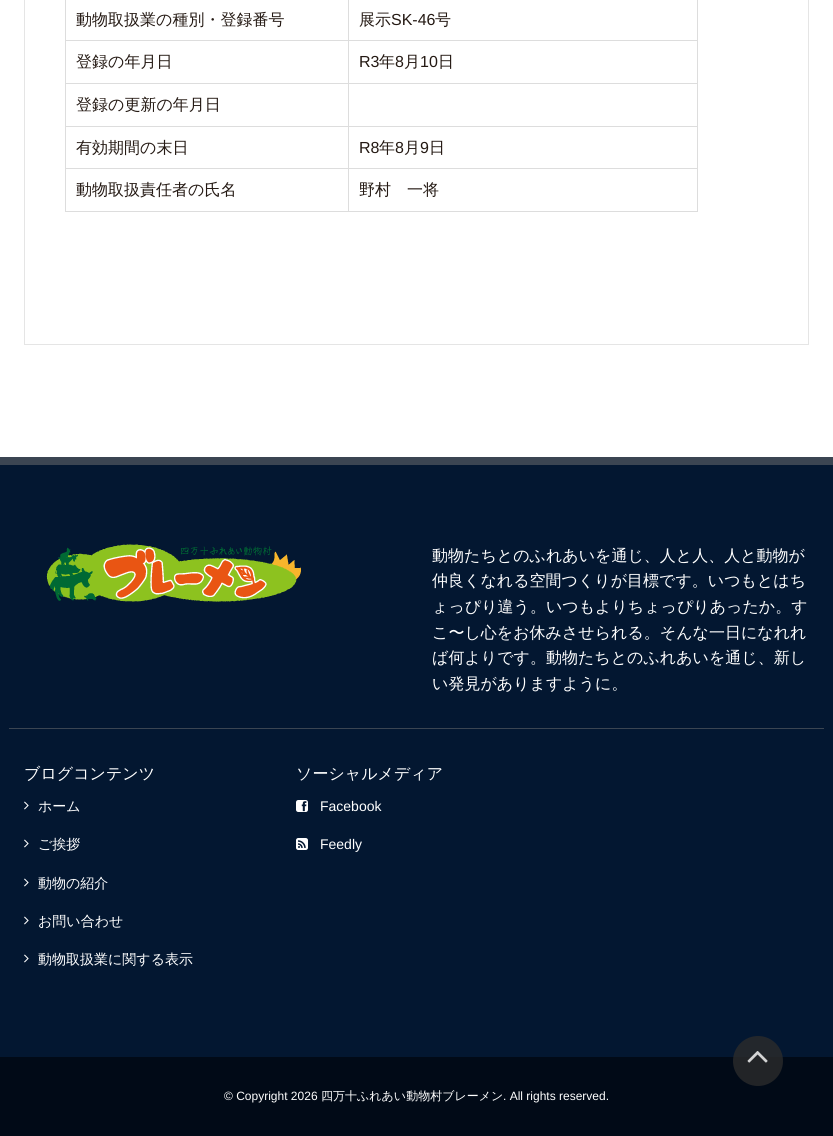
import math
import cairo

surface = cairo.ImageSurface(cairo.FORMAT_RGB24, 833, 1136)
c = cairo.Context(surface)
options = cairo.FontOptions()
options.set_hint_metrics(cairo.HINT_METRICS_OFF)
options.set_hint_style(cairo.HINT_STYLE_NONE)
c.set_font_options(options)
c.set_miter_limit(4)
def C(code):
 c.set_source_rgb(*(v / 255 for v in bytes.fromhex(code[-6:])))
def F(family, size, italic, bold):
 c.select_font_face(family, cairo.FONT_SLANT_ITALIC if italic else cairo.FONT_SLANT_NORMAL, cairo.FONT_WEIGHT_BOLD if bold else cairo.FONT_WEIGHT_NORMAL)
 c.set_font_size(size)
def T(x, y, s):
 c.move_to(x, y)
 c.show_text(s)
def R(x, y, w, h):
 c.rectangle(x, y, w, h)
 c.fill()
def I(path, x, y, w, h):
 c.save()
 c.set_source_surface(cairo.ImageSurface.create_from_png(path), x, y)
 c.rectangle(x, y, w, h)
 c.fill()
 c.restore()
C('ffffff')
c.paint()
c.rectangle(24.5,-.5,784,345)
C('e5e5e5')
c.set_line_width(1)
c.stroke()
C('dddddd')
R(697,0,1,212)
R(65,211,633,1)
R(65,0,1,212)
F('WenQuanYi Zen Hei Medium',16,0,0)
C('241913')
T(76,25,'動物取扱業の種別・登録番号')
C('dddddd')
R(348,40,350,1)
R(348,83,350,1)
R(348,126,350,1)
R(348,168,350,1)
R(348,168,1,44)
R(65,168,284,1)
R(348,126,1,43)
R(65,126,284,1)
R(348,83,1,44)
R(65,83,284,1)
R(348,40,1,44)
R(65,40,284,1)
R(348,0,1,41)
C('241913')
T(359,25,'展示')
F('Liberation Sans',16,0,0)
T(391,25,'SK-46')
F('WenQuanYi Zen Hei Medium',16,0,0)
T(435,25,'号')
T(76,67,'登録の年月日')
F('Liberation Sans',16,0,0)
T(359,67,'R3')
F('WenQuanYi Zen Hei Medium',16,0,0)
T(379,67,'年')
F('Liberation Sans',16,0,0)
T(395,67,'8')
F('WenQuanYi Zen Hei Medium',16,0,0)
T(404,67,'月')
F('Liberation Sans',16,0,0)
T(420,67,'10')
F('WenQuanYi Zen Hei Medium',16,0,0)
T(438,67,'日')
T(76,110,'登録の更新の年月日')
T(76,153,'有効期間の末日')
F('Liberation Sans',16,0,0)
T(359,153,'R8')
F('WenQuanYi Zen Hei Medium',16,0,0)
T(379,153,'年')
F('Liberation Sans',16,0,0)
T(395,153,'8')
F('WenQuanYi Zen Hei Medium',16,0,0)
T(404,153,'月')
F('Liberation Sans',16,0,0)
T(420,153,'9')
F('WenQuanYi Zen Hei Medium',16,0,0)
T(429,153,'日')
T(76,195,'動物取扱責任者の氏名')
T(359,195,'野村　一将')
C('3b4552')
R(0,457,833,8)
C('031731')
R(0,465,833,592)
C('3b4552')
R(9,728,815,1)
I('1.png',46,544,255,58)
C('ffffff')
T(432,561,'動物たちとのふれあいを通じ、人と人、人と動物が')
T(432,586,'仲良くなれる空間つくりが目標です。いつもとはち')
T(432,612,'ょっぴり違う。いつもよりちょっぴりあったか。す')
T(432,638,'こ〜し心をお休みさせられる。そんな一日になれれ')
T(432,663,'ば何よりです。動物たちとのふれあいを通じ、新し')
T(432,689,'い発見がありますように。')
T(24,779,'ブログコンテンツ')
I('2.png',24,801,5,9)
F('WenQuanYi Zen Hei Medium',14,0,0)
T(38,811,'ホーム')
I('2.png',24,839,5,9)
T(38,849,'ご挨拶')
I('2.png',24,878,5,9)
T(38,888,'動物の紹介')
I('2.png',24,916,5,9)
T(38,926,'お問い合わせ')
I('2.png',24,954,5,9)
T(38,964,'動物取扱業に関する表示')
F('WenQuanYi Zen Hei Medium',16,0,0)
T(296,779,'ソーシャルメディア')
I('3.png',296,800,12,12)
F('Liberation Sans',14,0,0)
T(320,811,'Facebook')
I('4.png',296,838,12,12)
T(320,849,'Feedly')
C('010a17')
R(0,1057,833,79)
F('Liberation Sans',12,0,0)
C('ffffff')
T(224,1100,'© Copyright 2026')
F('WenQuanYi Zen Hei Medium',12,0,0)
T(321,1100,'四万十ふれあい動物村ブレーメン')
F('Liberation Sans',12,0,0)
T(503,1100,'. All rights reserved.')
c.set_source_rgba(0.169,0.169,0.169,0.8)
c.new_path()
c.arc(758,1061,25,0,2 * math.pi)
c.fill()
I('5.png',747,1051,21,12)
surface.write_to_png('o.png')
